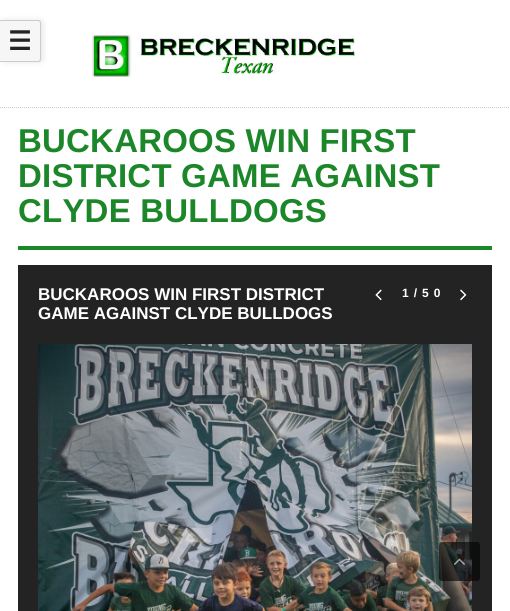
import math
import cairo

surface = cairo.ImageSurface(cairo.FORMAT_RGB24, 510, 611)
c = cairo.Context(surface)
options = cairo.FontOptions()
options.set_hint_metrics(cairo.HINT_METRICS_OFF)
options.set_hint_style(cairo.HINT_STYLE_NONE)
c.set_font_options(options)
c.set_miter_limit(4)
def C(code):
 c.set_source_rgb(*(v / 255 for v in bytes.fromhex(code[-6:])))
def F(family, size, italic, bold):
 c.select_font_face(family, cairo.FONT_SLANT_ITALIC if italic else cairo.FONT_SLANT_NORMAL, cairo.FONT_WEIGHT_BOLD if bold else cairo.FONT_WEIGHT_NORMAL)
 c.set_font_size(size)
def T(x, y, s):
 c.move_to(x, y)
 c.show_text(s)
def L(x, y, s, letter, word):
 c.move_to(x, y)
 for ch in s:
  c.show_text(ch)
  c.rel_move_to(letter + word * (ch == ' '), 0)
def R(x, y, w, h):
 c.rectangle(x, y, w, h)
 c.fill()
def Q(x, y, w, h, r):
 c.new_sub_path()
 for i, (u, v) in enumerate([(x + w - r, y + h - r), (x + r, y + h - r), (x + r, y + r), (x + w - r, y + r)]):
  c.arc(u, v, r, i * math.pi / 2, (i + 1) * math.pi / 2)
 c.close_path()
def S(x, y, w, h, r, blur, alpha):
 c.push_group_with_content(cairo.CONTENT_ALPHA)
 c.set_operator(cairo.OPERATOR_SOURCE)
 for i in range(15, -16, -2):
  e = blur * i / 6
  if min(w, h) + 2 * e > 0:
   c.set_source_rgba(0, 0, 0, alpha * math.erfc((i - 1) / 8.5) / 2)
   Q(x - e, y - e, w + 2 * e, h + 2 * e, max(0, min(r + e + blur * .6, min(w, h) / 2 + e)))
   c.fill()
 c.mask(c.pop_group())
def I(path, x, y, w, h):
 c.save()
 c.set_source_surface(cairo.ImageSurface.create_from_png(path), x, y)
 c.rectangle(x, y, w, h)
 c.fill()
 c.restore()
C('ffffff')
c.paint()
C('000000')
S(2,20,41,42,3,3,.1)
C('f6f6f6')
c.new_path()
c.move_to(0,20)
c.line_to(38,20)
c.curve_to(39.5,20,41,21.5,41,23)
c.line_to(41,59)
c.curve_to(41,60.5,39.5,62,38,62)
c.line_to(0,62)
c.close_path()
c.fill()
C('cccccc')
c.set_fill_rule(cairo.FILL_RULE_EVEN_ODD)
c.new_path()
c.move_to(0,20)
c.line_to(38,20)
c.curve_to(40,20,41,21,41,23)
c.line_to(41,59)
c.curve_to(41,61,40,62,38,62)
c.line_to(0,62)
c.close_path()
c.move_to(0,21)
c.line_to(38,21)
c.curve_to(39,21,40,22,40,23)
c.line_to(40,59)
c.curve_to(40,60,39,61,38,61)
c.line_to(0,61)
c.close_path()
c.fill()
F('DejaVu Sans',26,0,1)
C('232323')
T(8,50,'☰')
I('1.png',92,35,263,42)
c.new_path()
c.move_to(0,107.5)
c.line_to(510,107.5)
C('cccccc')
c.set_line_width(1)
c.set_dash([1,1])
c.stroke()
C('1c8729')
R(18,246,474,4)
F('Liberation Sans',33,0,1)
L(18,152,'BUCKAROOS WIN FIRST',.2,0)
L(18,187,'DISTRICT GAME AGAINST',.2,0)
L(18,222,'CLYDE BULLDOGS',.2,0)
C('232323')
R(18,265,474,346)
F('Liberation Sans',17,0,1)
C('ffffff')
T(38,300,'BUCKAROOS WIN FIRST DISTRICT')
T(38,319,'GAME AGAINST CLYDE BULLDOGS')
I('2.png',375,289,7,12)
F('Liberation Sans',12,0,1)
L(402,297,'1/50',5,0)
I('3.png',460,289,7,12)
I('4.png',38,344,434,267)
c.set_source_rgba(0,0,0,0.6)
Q(439,542,41,39,3)
c.fill()
I('5.png',454,558,11,7)
surface.write_to_png('o.png')
